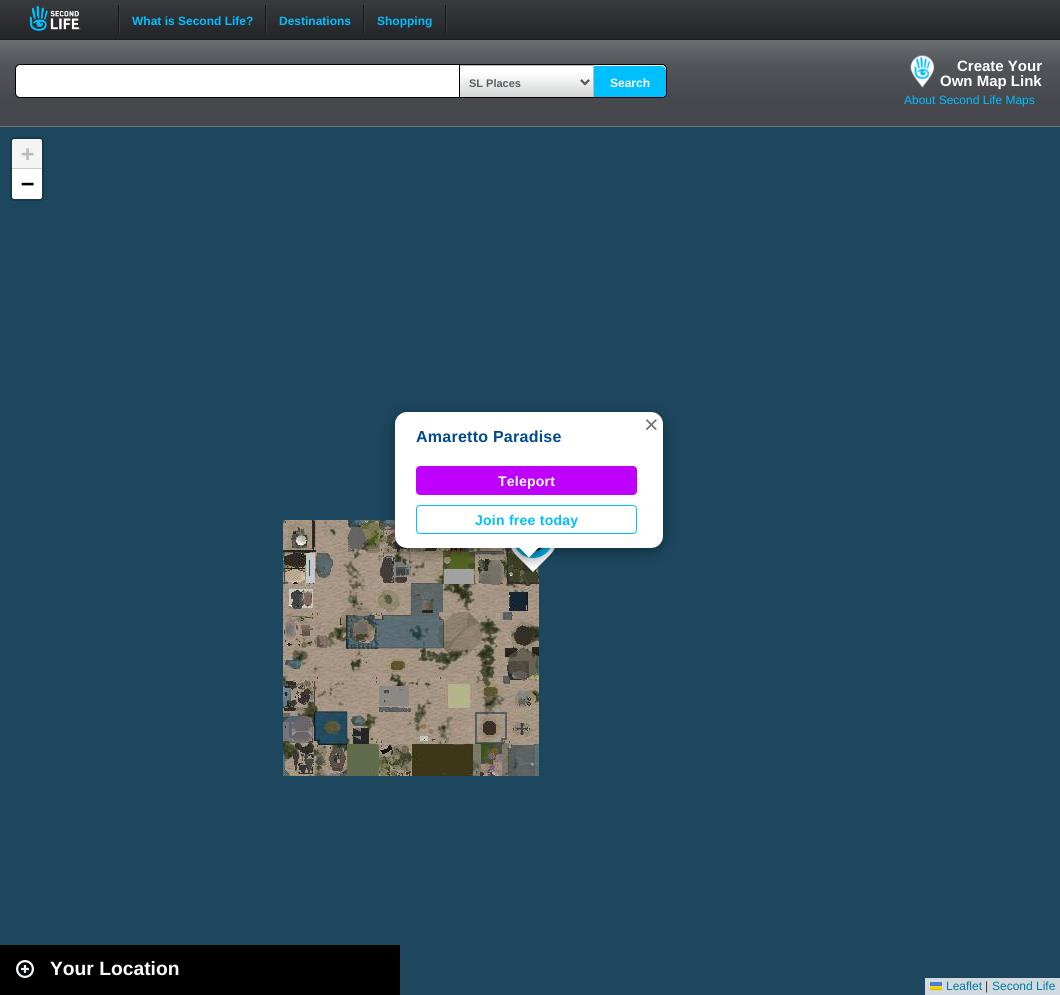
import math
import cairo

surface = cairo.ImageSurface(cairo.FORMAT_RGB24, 1060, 995)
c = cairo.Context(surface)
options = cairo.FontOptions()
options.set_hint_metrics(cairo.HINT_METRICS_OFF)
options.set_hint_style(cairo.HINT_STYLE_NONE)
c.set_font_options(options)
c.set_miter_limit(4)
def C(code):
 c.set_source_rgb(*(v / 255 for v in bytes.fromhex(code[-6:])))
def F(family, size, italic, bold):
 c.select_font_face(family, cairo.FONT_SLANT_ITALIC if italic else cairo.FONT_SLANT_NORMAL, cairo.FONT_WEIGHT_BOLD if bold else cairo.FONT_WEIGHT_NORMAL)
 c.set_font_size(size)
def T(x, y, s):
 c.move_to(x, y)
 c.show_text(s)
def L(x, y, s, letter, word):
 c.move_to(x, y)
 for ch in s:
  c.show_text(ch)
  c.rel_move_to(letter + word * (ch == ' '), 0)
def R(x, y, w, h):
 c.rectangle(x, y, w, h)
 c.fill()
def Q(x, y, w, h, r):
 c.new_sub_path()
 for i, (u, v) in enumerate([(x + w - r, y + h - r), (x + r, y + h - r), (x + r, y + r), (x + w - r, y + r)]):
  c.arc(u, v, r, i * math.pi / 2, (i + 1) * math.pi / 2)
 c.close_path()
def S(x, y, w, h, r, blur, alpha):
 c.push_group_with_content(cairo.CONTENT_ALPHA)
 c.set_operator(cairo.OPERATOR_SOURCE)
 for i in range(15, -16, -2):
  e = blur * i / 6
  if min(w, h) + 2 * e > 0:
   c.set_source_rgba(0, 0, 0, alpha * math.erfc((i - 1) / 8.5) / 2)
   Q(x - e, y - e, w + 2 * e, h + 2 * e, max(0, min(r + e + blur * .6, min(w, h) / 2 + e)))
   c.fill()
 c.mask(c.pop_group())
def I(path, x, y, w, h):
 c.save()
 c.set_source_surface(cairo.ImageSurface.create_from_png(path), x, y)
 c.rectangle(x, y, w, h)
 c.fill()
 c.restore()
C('1d475f')
c.paint()
I('1.png',0,0,1060,40)
I('2.png',29,6,52,25)
C('3a3e42')
R(119,5,1,28)
C('161616')
R(118,5,1,28)
F('Liberation Sans',12,0,1)
C('00bfff')
T(132,25,'What is Second Life?')
C('3a3e42')
R(266,5,1,28)
C('161616')
R(265,5,1,28)
C('00bfff')
T(279,25,'Destinations')
C('3a3e42')
R(364,5,1,28)
C('161616')
R(363,5,1,28)
C('00bfff')
T(377,25,'Shopping')
C('3a3e42')
R(446,5,1,28)
C('161616')
R(445,5,1,28)
gradient = cairo.LinearGradient(0,126,0,40)
gradient.add_color_stop_rgba(.29,0.278,0.282,0.302,1)
gradient.add_color_stop_rgba(.71,0.318,0.333,0.349,1)
gradient.add_color_stop_rgba(1,0.42,0.431,0.451,1)
c.set_source(gradient)
R(0,40,1060,86)
C('72777e')
R(0,126,1060,1)
C('ffffff')
Q(15.5,64.5,651,33,4.5)
c.fill_preserve()
C('000000')
c.set_line_width(1)
c.stroke()
I('3.png',460,66,133,31)
C('bbbbbb')
R(459,65,135,1)
R(593,65,1,32)
C('000000')
R(459,65,1,32)
c.new_path()
c.move_to(581,80)
c.line_to(585,84)
c.line_to(589,80)
C('595c62')
c.set_line_width(2)
c.stroke()
F('Liberation Sans',11,0,1)
T(469,87,'SL Places')
c.save()
Q(16,65,650,32,4)
c.clip()
C('00bfff')
c.new_path()
c.move_to(594,66)
c.line_to(661,66)
c.curve_to(664,66,666,68,666,71)
c.line_to(666,95)
c.curve_to(666,98,664,100,661,100)
c.line_to(594,100)
c.close_path()
c.fill()
c.restore()
F('Liberation Sans',12,0,1)
C('ffffff')
T(610,87,'Search')
I('4.png',910,55,25,33)
F('Liberation Sans',15,0,1)
T(957,71,'Create Your')
T(940,86,'Own Map Link')
F('Liberation Sans',12,0,0)
C('00bfff')
T(904,104,'About Second Life Maps')
Q(11,138,32,62,3)
C('17394c')
c.stroke()
C('f4f4f4')
c.new_path()
c.move_to(14,139)
c.line_to(40,139)
c.curve_to(41,139,42,140,42,141)
c.line_to(42,169)
c.line_to(12,169)
c.line_to(12,141)
c.curve_to(12,140,13,139,14,139)
c.close_path()
c.fill()
C('cccccc')
R(12,168,30,1)
F('DejaVu Sans Mono',22,0,1)
C('bbbbbb')
T(21,161,'+')
C('ffffff')
c.new_path()
c.move_to(12,169)
c.line_to(42,169)
c.line_to(42,197)
c.curve_to(42,198,41,199,40,199)
c.line_to(14,199)
c.curve_to(13,199,12,198,12,197)
c.close_path()
c.fill()
C('000000')
T(21,191,'−')
C('d2dadf')
R(925,978,135,17)
F('Liberation Sans',12,0,0)
C('0078a8')
T(946,990,'Leaflet')
C('4c7be1')
R(930,982,12,4)
C('ffd500')
R(930,986,12,3)
C('e0bc00')
R(930,989,12,1)
C('333333')
T(985,990,'|')
C('0078a8')
T(992,990,'Second Life')
I('5.png',283,520,256,256)
I('6.png',511,548,44,24)
C('000000')
S(395,415,268,136,12,7,.4)
C('ffffff')
Q(395,412,268,136,12)
c.fill()
F('Liberation Sans',25,0,0)
C('757575')
T(644,433,'×')
F('Liberation Sans',16,0,1)
C('014a8e')
L(416,442,'Amaretto Paradise',.25,0)
C('bf00ff')
Q(416,466,221,29,4)
c.fill()
F('Liberation Sans',14,0,1)
C('ffffff')
L(498,486,'Teleport',.25,0)
Q(416.5,505.5,220,28,3.5)
C('00bfff')
c.set_line_width(1)
c.stroke()
L(475,525,'Join free today',.25,0)
c.save()
c.rectangle(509,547,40,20)
c.clip()
C('000000')
S(521,540,17,17,0,7,.4)
c.restore()
c.save()
c.rectangle(509,547,40,20)
c.clip()
C('ffffff')
c.new_path()
c.move_to(529,533.5)
c.line_to(541,545.5)
c.line_to(529,557.5)
c.line_to(517,545.5)
c.close_path()
c.fill()
c.restore()
C('000000')
R(0,945,400,50)
I('7.png',16,960,18,18)
F('Liberation Sans',19.25,0,1)
C('ffffff')
T(50,975,'Your Location')
surface.write_to_png('o.png')
